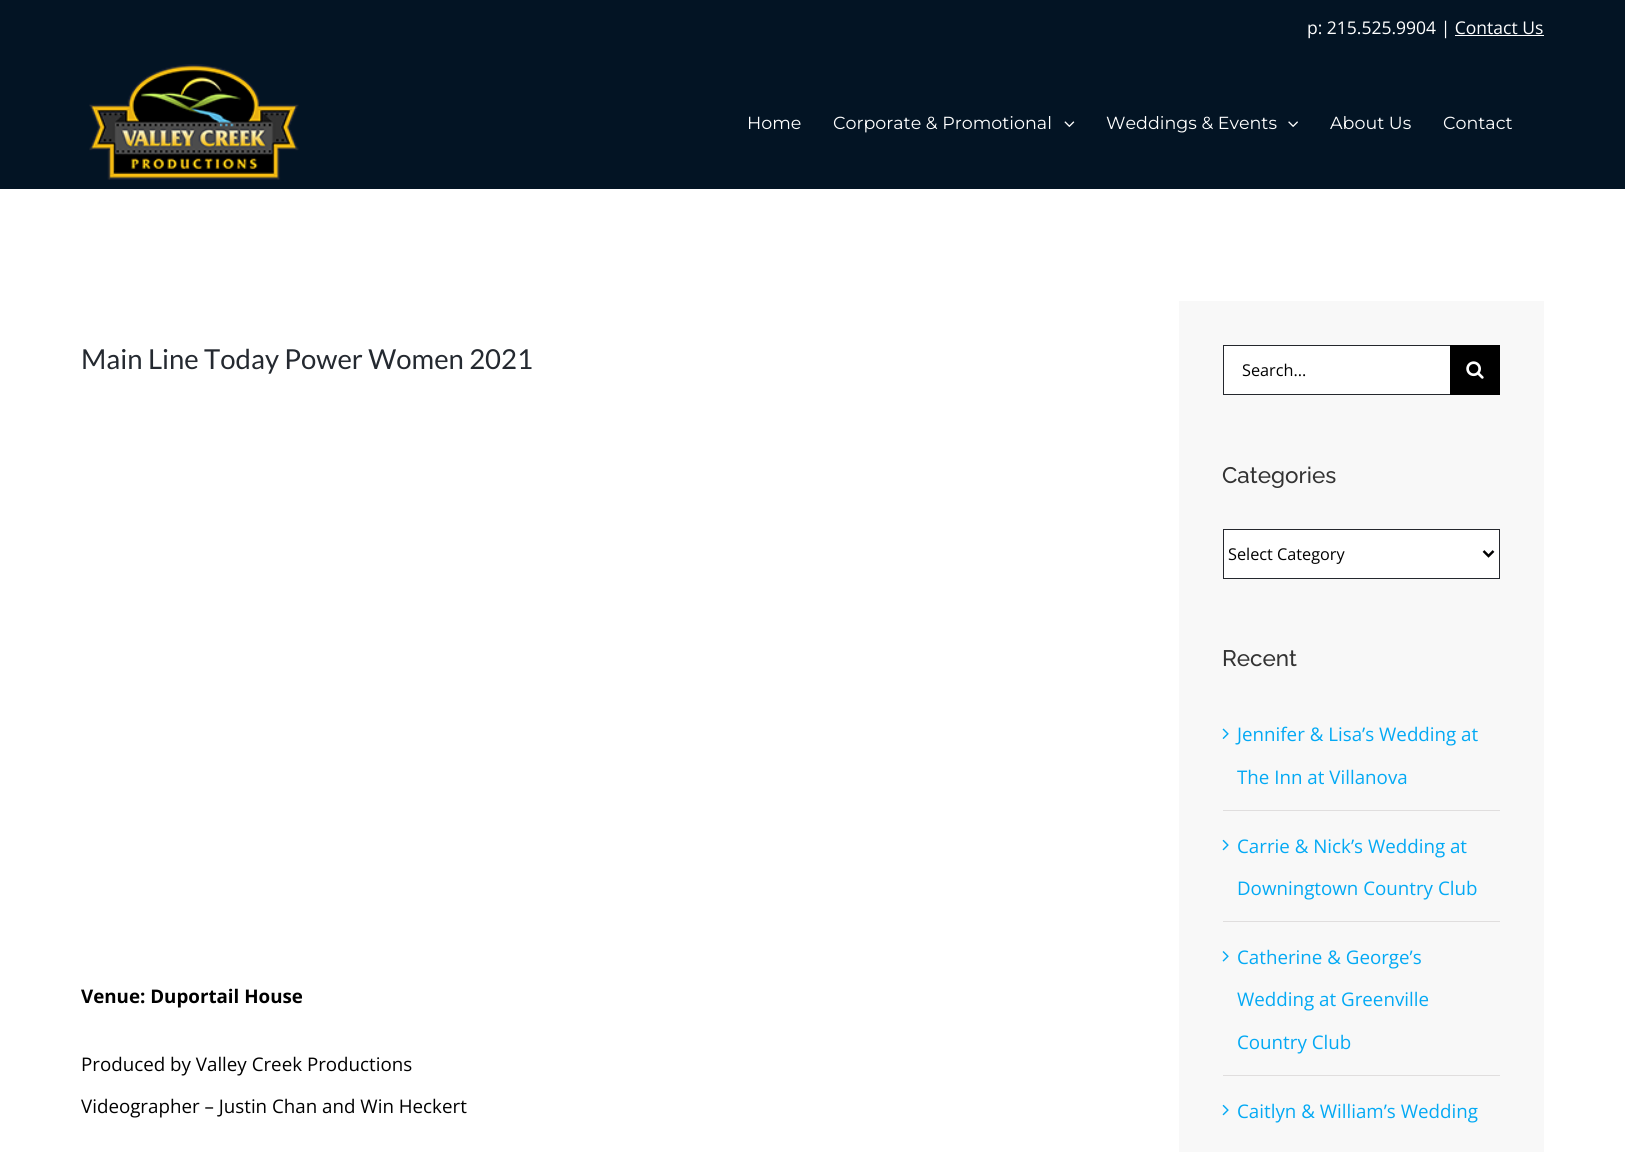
import math
import cairo

surface = cairo.ImageSurface(cairo.FORMAT_RGB24, 1625, 1152)
c = cairo.Context(surface)
options = cairo.FontOptions()
options.set_hint_metrics(cairo.HINT_METRICS_OFF)
options.set_hint_style(cairo.HINT_STYLE_NONE)
c.set_font_options(options)
c.set_miter_limit(4)
def C(code):
 c.set_source_rgb(*(v / 255 for v in bytes.fromhex(code[-6:])))
def F(family, size, italic, bold):
 c.select_font_face(family, cairo.FONT_SLANT_ITALIC if italic else cairo.FONT_SLANT_NORMAL, cairo.FONT_WEIGHT_BOLD if bold else cairo.FONT_WEIGHT_NORMAL)
 c.set_font_size(size)
def T(x, y, s):
 c.move_to(x, y)
 c.show_text(s)
def R(x, y, w, h):
 c.rectangle(x, y, w, h)
 c.fill()
def I(path, x, y, w, h):
 c.save()
 c.set_source_surface(cairo.ImageSurface.create_from_png(path), x, y)
 c.rectangle(x, y, w, h)
 c.fill()
 c.restore()
C('ffffff')
c.paint()
C('031424')
R(0,0,1625,189)
F('Open Sans',17.5,0,0)
C('ffffff')
T(1307,34,'p: 215.525.9904 | Contact Us')
R(1455,35,89,1)
I('1.png',89,64,210,116)
F('Montserrat Thin',17.5,0,0)
T(747,129,'Home')
T(833,129,'Corporate & Promotional')
I('2.png',1064,121,11,6)
T(1106,129,'Weddings & Events')
I('3.png',1288,121,10,6)
T(1330,129,'About Us')
T(1443,129,'Contact')
F('Lato',27.5,0,0)
C('242930')
T(81,369,'Main Line Today Power Women 2021')
F('Open Sans',18.75,0,1)
C('000000')
T(81,1003,'Venue: Duportail House')
F('Open Sans',18.75,0,0)
T(81,1071,'Produced by Valley Creek Productions')
T(81,1113,'Videographer – Justin Chan and Win Heckert')
C('f8f8f8')
R(1179,301,365,851)
C('ffffff')
R(1224,346,226,48)
C('24272d')
R(1223,345,227,1)
R(1223,394,227,1)
R(1223,345,1,50)
F('Open Sans',16.25,0,0)
C('000000')
T(1242,376,'Search...')
R(1450,345,50,50)
I('4.png',1466,361,18,18)
F('Raleway Thin',22.5,0,0)
C('333333')
T(1222,483,'Categories')
C('ffffff')
c.rectangle(1223.5,529.5,276,49)
c.fill_preserve()
C('24272d')
c.set_line_width(1)
c.stroke()
c.new_path()
c.move_to(1483.5,551)
c.line_to(1488.5,556)
c.line_to(1493.5,551)
C('000000')
c.set_line_width(2.5)
c.stroke()
F('Open Sans',16.25,0,0)
T(1228,560,'Select Category')
F('Raleway Thin',22.5,0,0)
C('333333')
T(1222,666,'Recent')
C('e0dede')
R(1223,810,277,1)
I('5.png',1222,728,7,11)
F('Open Sans',18.75,0,0)
C('03a9f4')
T(1237,741,'Jennifer & Lisa’s Wedding at')
T(1237,784,'The Inn at Villanova')
C('e0dede')
R(1223,921,277,1)
I('6.png',1222,839,7,12)
C('03a9f4')
T(1237,853,'Carrie & Nick’s Wedding at')
T(1237,895,'Downingtown Country Club')
C('e0dede')
R(1223,1075,277,1)
I('7.png',1222,951,7,11)
C('03a9f4')
T(1237,964,'Catherine & George’s')
T(1237,1006,'Wedding at Greenville')
T(1237,1049,'Country Club')
I('6.png',1222,1104,7,12)
T(1237,1118,'Caitlyn & William’s Wedding')
surface.write_to_png('o.png')
